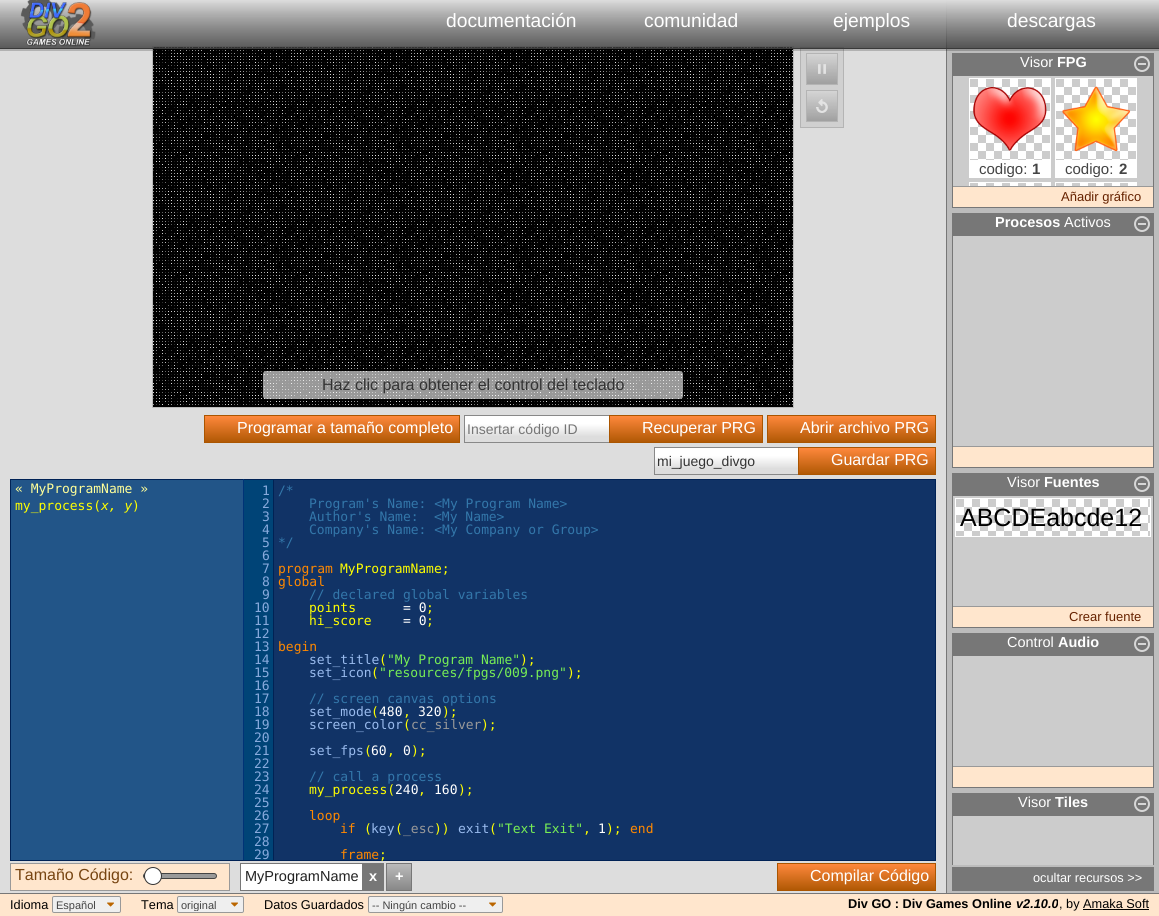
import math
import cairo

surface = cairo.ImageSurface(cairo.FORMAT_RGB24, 1159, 916)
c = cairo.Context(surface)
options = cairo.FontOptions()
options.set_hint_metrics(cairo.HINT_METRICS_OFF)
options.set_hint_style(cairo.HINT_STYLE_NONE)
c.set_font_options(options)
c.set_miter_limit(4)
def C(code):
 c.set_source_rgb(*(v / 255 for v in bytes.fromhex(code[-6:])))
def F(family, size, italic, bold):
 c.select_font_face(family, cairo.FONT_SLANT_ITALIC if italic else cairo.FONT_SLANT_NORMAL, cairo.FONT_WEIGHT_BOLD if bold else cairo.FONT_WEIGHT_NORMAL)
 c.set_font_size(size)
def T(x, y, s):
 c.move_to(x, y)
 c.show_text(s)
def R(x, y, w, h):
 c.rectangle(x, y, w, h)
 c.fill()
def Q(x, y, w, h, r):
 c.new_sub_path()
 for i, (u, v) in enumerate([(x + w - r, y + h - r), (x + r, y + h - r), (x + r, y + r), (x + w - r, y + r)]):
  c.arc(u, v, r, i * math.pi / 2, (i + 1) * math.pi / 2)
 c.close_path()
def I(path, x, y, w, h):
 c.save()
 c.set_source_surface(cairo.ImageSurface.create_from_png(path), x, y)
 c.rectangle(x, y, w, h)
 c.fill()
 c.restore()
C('dddddd')
c.paint()
I('2.png',153,47,640,360)
c.rectangle(152.5,46.5,641,361)
C('bbbbbb')
c.set_line_width(1)
c.stroke()
C('d0d0d0')
R(801,49,42,78)
c.rectangle(800.5,47.5,43,80)
C('b4b4b4')
c.stroke()
C('bcbcbc')
R(947,1,212,892)
C('777777')
R(946,0,1,893)
c.set_source_rgba(0,0,0,0.2)
R(0,49,1159,2)
gradient = cairo.LinearGradient(598,0,598,48)
gradient.add_color_stop_rgba(0,0.863,0.863,0.863,1)
gradient.add_color_stop_rgba(1,0.235,0.235,0.235,.8)
c.set_source(gradient)
R(0,0,1159,48)
C('3a3a3a')
R(0,48,1159,1)
I('1.png',20,0,76,47)
F('Liberation Sans',19.25,0,0)
C('ffffff')
T(446,27,'documentación')
T(644,27,'comunidad')
T(833,27,'ejemplos')
T(1007,27,'descargas')
I('3.png',807,54,30,30)
c.rectangle(806.5,53.5,31,31)
C('b4b4b4')
c.stroke()
I('4.png',807,91,30,30)
c.rectangle(806.5,90.5,31,31)
c.stroke()
c.set_source_rgba(1,1,1,0.6)
Q(263,371,420,28,3)
c.fill()
F('Liberation Sans',16,0,0)
C('333333')
T(322,390,'Haz clic para obtener el control del teclado')
gradient = cairo.LinearGradient(206,416,206,444)
gradient.add_color_stop_rgba(0,1,0.533,0.235,1)
gradient.add_color_stop_rgba(1,0.667,0.333,0,1)
c.set_source(gradient)
R(205,416,254,26)
c.rectangle(204.5,415.5,255,27)
C('aa5500')
c.stroke()
C('ffffff')
T(237,433,'Programar a tamaño completo')
gradient = cairo.LinearGradient(537,416,537,442)
gradient.add_color_stop_rgba(.3,1,1,1,1)
gradient.add_color_stop_rgba(.8,0.867,0.867,0.867,1)
c.set_source(gradient)
R(465,416,144,20)
c.rectangle(464.5,415.5,145,27)
C('888888')
c.stroke()
F('Liberation Sans',14,0,0)
C('757575')
T(467,434,'Insertar código ID')
gradient = cairo.LinearGradient(611,416,611,444)
gradient.add_color_stop_rgba(0,1,0.533,0.235,1)
gradient.add_color_stop_rgba(1,0.667,0.333,0,1)
c.set_source(gradient)
R(610,416,152,26)
c.rectangle(609.5,415.5,153,27)
C('aa5500')
c.stroke()
F('Liberation Sans',16,0,0)
C('ffffff')
T(642,433,'Recuperar PRG')
gradient = cairo.LinearGradient(769,416,769,444)
gradient.add_color_stop_rgba(0,1,0.533,0.235,1)
gradient.add_color_stop_rgba(1,0.667,0.333,0,1)
c.set_source(gradient)
R(768,416,167,26)
c.rectangle(767.5,415.5,168,27)
C('aa5500')
c.stroke()
C('ffffff')
T(800,433,'Abrir archivo PRG')
gradient = cairo.LinearGradient(727,448,727,474)
gradient.add_color_stop_rgba(.3,1,1,1,1)
gradient.add_color_stop_rgba(.8,0.867,0.867,0.867,1)
c.set_source(gradient)
R(655,448,143,20)
c.rectangle(654.5,447.5,145,27)
C('888888')
c.stroke()
F('Liberation Sans',14,0,0)
C('333333')
T(657,466,'mi_juego_divgo')
gradient = cairo.LinearGradient(800,448,800,476)
gradient.add_color_stop_rgba(0,1,0.533,0.235,1)
gradient.add_color_stop_rgba(1,0.667,0.333,0,1)
c.set_source(gradient)
R(799,448,136,26)
c.rectangle(798.5,447.5,137,27)
C('aa5500')
c.stroke()
F('Liberation Sans',16,0,0)
C('ffffff')
T(831,465,'Guardar PRG')
C('225588')
R(11,480,232,380)
C('002255')
R(10,479,926,1)
C('003377')
R(243,479,1,382)
C('002255')
R(10,860,234,1)
R(10,479,1,382)
F('DejaVu Sans Mono',13,0,0)
C('ffff99')
T(15,493,'« MyProgramName »')
C('ffff00')
T(15,510,'my_process(')
F('DejaVu Sans Mono',13,1,0)
T(101,510,'x, y')
F('DejaVu Sans Mono',13,0,0)
T(132,510,')')
C('113366')
R(274,480,661,380)
C('002255')
R(935,479,1,382)
R(244,860,692,1)
C('004477')
R(244,480,29,380)
C('002255')
R(273,480,1,380)
C('88aadd')
T(262,495,'1')
C('3377aa')
T(278,495,'/*')
C('88aadd')
T(262,508,'2')
C('3377aa')
T(309,508,'Program\'s Name: <My Program Name>')
C('88aadd')
T(262,521,'3')
C('3377aa')
T(309,521,'Author\'s Name:')
T(434,521,'<My Name>')
C('88aadd')
T(262,534,'4')
C('3377aa')
T(309,534,'Company\'s Name: <My Company or Group>')
C('88aadd')
T(262,547,'5')
C('3377aa')
T(278,547,'*/')
C('88aadd')
T(262,560,'6')
T(262,573,'7')
C('ff8800')
T(278,573,'program')
C('ffff00')
T(340,573,'MyProgramName;')
C('88aadd')
T(262,586,'8')
C('ff8800')
T(278,586,'global')
C('88aadd')
T(262,599,'9')
C('3377aa')
T(309,599,'// declared global variables')
C('88aadd')
T(254,612,'10')
C('ffff00')
T(309,612,'points')
C('ffffff')
T(403,612,'= 0')
C('ffff00')
T(426,612,';')
C('88aadd')
T(254,625,'11')
C('ffff00')
T(309,625,'hi_score')
C('ffffff')
T(403,625,'= 0')
C('ffff00')
T(426,625,';')
C('88aadd')
T(254,638,'12')
T(254,651,'13')
C('ff8800')
T(278,651,'begin')
C('88aadd')
T(254,664,'14')
C('99bbee')
T(309,664,'set_title')
C('ffff00')
T(379,664,'(')
C('77ee55')
T(387,664,'"My Program Name"')
C('ffff00')
T(520,664,');')
C('88aadd')
T(254,677,'15')
C('99bbee')
T(309,677,'set_icon')
C('ffff00')
T(371,677,'(')
C('77ee55')
T(379,677,'"resources/fpgs/009.png"')
C('ffff00')
T(567,677,');')
C('88aadd')
T(254,690,'16')
T(254,703,'17')
C('3377aa')
T(309,703,'// screen canvas options')
C('88aadd')
T(254,716,'18')
C('99bbee')
T(309,716,'set_mode')
C('ffff00')
T(371,716,'(')
C('ffffff')
T(379,716,'480')
C('ffff00')
T(403,716,',')
C('ffffff')
T(418,716,'320')
C('ffff00')
T(442,716,');')
C('88aadd')
T(254,729,'19')
C('99bbee')
T(309,729,'screen_color')
C('ffff00')
T(403,729,'(')
C('999999')
T(411,729,'cc_silver')
C('ffff00')
T(481,729,');')
C('88aadd')
T(254,742,'20')
T(254,755,'21')
C('99bbee')
T(309,755,'set_fps')
C('ffff00')
T(364,755,'(')
C('ffffff')
T(371,755,'60')
C('ffff00')
T(387,755,',')
C('ffffff')
T(403,755,'0')
C('ffff00')
T(411,755,');')
C('88aadd')
T(254,768,'22')
T(254,781,'23')
C('3377aa')
T(309,781,'// call a process')
C('88aadd')
T(254,794,'24')
C('ffff00')
T(309,794,'my_process(')
C('ffffff')
T(395,794,'240')
C('ffff00')
T(418,794,',')
C('ffffff')
T(434,794,'160')
C('ffff00')
T(458,794,');')
C('88aadd')
T(254,807,'25')
T(254,820,'26')
C('ff8800')
T(309,820,'loop')
C('88aadd')
T(254,833,'27')
C('ff8800')
T(340,833,'if')
C('ffff00')
T(364,833,'(')
C('99bbee')
T(371,833,'key')
C('ffff00')
T(395,833,'(')
C('999999')
T(403,833,'_esc')
C('ffff00')
T(434,833,'))')
C('99bbee')
T(458,833,'exit')
C('ffff00')
T(489,833,'(')
C('77ee55')
T(497,833,'"Text Exit"')
C('ffff00')
T(583,833,',')
C('ffffff')
T(598,833,'1')
C('ffff00')
T(606,833,');')
C('ff8800')
T(630,833,'end')
C('88aadd')
T(254,846,'28')
T(254,859,'29')
C('ff8800')
T(340,859,'frame')
C('ffff00')
T(379,859,';')
C('ffe6cd')
c.rectangle(10.5,863.5,219,27)
c.fill_preserve()
C('999999')
c.stroke()
F('Liberation Sans',16,0,0)
C('774411')
T(15,880,'Tamaño Código:')
C('999999')
Q(143.5,873.5,73,5,2.5)
c.fill_preserve()
C('444444')
c.stroke()
C('ffffff')
c.arc(153,876,8.5,0,2 * math.pi)
c.fill_preserve()
C('333333')
c.stroke()
C('ffffff')
c.rectangle(240.5,863.5,122,27)
c.fill_preserve()
C('777777')
c.stroke()
F('Liberation Sans',14.5,0,0)
C('222222')
T(245,881,'MyProgramName')
C('777777')
R(363,863,21,28)
F('Liberation Sans',14.5,0,1)
C('ffffff')
T(369,881,'x')
gradient = cairo.LinearGradient(399,864,399,890)
gradient.add_color_stop_rgba(0,0.733,0.733,0.733,1)
gradient.add_color_stop_rgba(1,0.533,0.533,0.533,1)
c.set_source(gradient)
R(387,864,24,26)
c.rectangle(386.5,863.5,25,27)
C('777777')
c.stroke()
C('ffffff')
T(395,881,'+')
gradient = cairo.LinearGradient(779,864,779,892)
gradient.add_color_stop_rgba(0,1,0.533,0.235,1)
gradient.add_color_stop_rgba(1,0.667,0.333,0,1)
c.set_source(gradient)
R(778,864,157,26)
c.rectangle(777.5,863.5,158,27)
C('aa5500')
c.stroke()
F('Liberation Sans',16,0,0)
C('ffffff')
T(810,881,'Compilar Código')
C('777777')
R(952,53,202,23)
F('Liberation Sans',14.5,0,0)
C('ffffff')
T(1020,67,'Visor')
F('Liberation Sans',14.5,0,1)
T(1057,67,'FPG')
I('5.png',1134,56,16,16)
C('cccccc')
R(953,76,200,110)
C('777777')
R(1153,75,1,111)
R(952,75,1,111)
I('6.png',970,79,80,81)
c.rectangle(969.5,78.5,81,99)
C('ffffff')
c.stroke()
I('7.png',973,87,74,64)
R(970,160,80,17)
F('Liberation Sans',15,0,0)
C('444444')
T(979,174,'codigo:')
F('Liberation Sans',15,0,1)
T(1032,174,'1')
I('6.png',1056,79,80,81)
c.rectangle(1055.5,78.5,81,99)
C('ffffff')
c.stroke()
I('8.png',1062,86,69,66)
R(1056,160,80,17)
F('Liberation Sans',15,0,0)
C('444444')
T(1065,174,'codigo:')
F('Liberation Sans',15,0,1)
T(1119,174,'2')
I('9.png',970,183,80,3)
C('cccccc')
R(953,236,200,210)
C('777777')
R(952,235,202,1)
c.save()
c.rectangle(953,76,200,110)
c.clip()
c.rectangle(969.5,182.5,81,99)
C('ffffff')
c.stroke()
c.restore()
I('9.png',1056,183,80,3)
c.save()
c.rectangle(953,76,200,110)
c.clip()
c.rectangle(1055.5,182.5,81,99)
C('ffffff')
c.stroke()
c.restore()
C('ffe6cd')
R(953,187,200,20)
C('999999')
R(952,186,202,1)
C('777777')
R(1153,186,1,22)
R(952,207,202,1)
R(952,186,1,22)
F('Liberation Sans',13,0,0)
C('662200')
T(1061,201,'Añadir gráfico')
C('777777')
R(952,213,202,22)
F('Liberation Sans',14.5,0,1)
C('ffffff')
T(995,227,'Procesos')
F('Liberation Sans',14.5,0,0)
T(1064,227,'Activos')
I('5.png',1134,216,16,16)
C('777777')
R(1153,235,1,211)
R(952,235,1,211)
C('ffe6cd')
R(953,447,200,20)
C('999999')
R(952,446,202,1)
C('777777')
R(1153,446,1,22)
R(952,467,202,1)
R(952,446,1,22)
R(952,473,202,23)
C('ffffff')
T(1007,487,'Visor')
F('Liberation Sans',14.5,0,1)
T(1044,487,'Fuentes')
I('5.png',1134,476,16,16)
C('cccccc')
R(953,496,200,110)
C('777777')
R(1153,495,1,111)
R(952,495,1,111)
I('10.png',956,499,194,37)
c.rectangle(955.5,498.5,195,38)
C('ffffff')
c.stroke()
F('Liberation Sans',25,0,0)
C('000000')
T(960,526,'ABCDEabcde12')
C('ffe6cd')
R(953,607,200,20)
C('999999')
R(952,606,202,1)
C('777777')
R(1153,606,1,22)
R(952,627,202,1)
R(952,606,1,22)
F('Liberation Sans',13,0,0)
C('662200')
T(1069,621,'Crear fuente')
C('cccccc')
R(953,656,200,110)
C('777777')
R(952,633,202,23)
R(1153,655,1,111)
R(952,655,1,111)
F('Liberation Sans',14.5,0,0)
C('ffffff')
T(1007,647,'Control')
F('Liberation Sans',14.5,0,1)
T(1058,647,'Audio')
I('5.png',1134,636,16,16)
C('ffe6cd')
R(953,767,200,20)
C('999999')
R(952,766,202,1)
C('777777')
R(1153,766,1,22)
R(952,787,202,1)
R(952,766,1,22)
C('cccccc')
R(953,816,200,49)
C('777777')
R(952,793,202,23)
R(1153,815,1,50)
R(952,815,1,50)
F('Liberation Sans',14.5,0,0)
C('ffffff')
T(1018,807,'Visor')
F('Liberation Sans',14.5,0,1)
T(1055,807,'Tiles')
I('5.png',1134,796,16,16)
C('bcbcbc')
c.set_fill_rule(cairo.FILL_RULE_EVEN_ODD)
c.new_path()
c.move_to(949,865)
c.line_to(949,895)
c.line_to(1157,895)
c.line_to(1157,865)
c.close_path()
c.move_to(952,867)
c.line_to(952,891)
c.line_to(1154,891)
c.line_to(1154,867)
c.close_path()
c.fill()
C('777777')
R(952,867,202,24)
F('Liberation Sans',12.75,0,0)
C('ffffff')
T(1033,882,'ocultar recursos >>')
C('ffe6cd')
R(0,894,1159,22)
C('777777')
R(0,893,1159,1)
C('000000')
T(10,909,'Idioma')
C('efefef')
Q(52,896,69,17,2)
c.fill()
I('11.png',107,902,7,5)
Q(52.5,896.5,68,16,1.5)
C('999999')
c.stroke()
F('Liberation Sans',11,0,0)
C('444444')
T(56,909,'Español')
F('Liberation Sans',12.75,0,0)
C('000000')
T(141,909,'Tema')
C('efefef')
Q(177,896,67,17,2)
c.fill()
I('11.png',231,902,7,5)
Q(177.5,896.5,66,16,1.5)
C('999999')
c.stroke()
c.save()
c.set_fill_rule(cairo.FILL_RULE_WINDING)
c.rectangle(181,899,38,12)
c.clip()
F('Liberation Sans',11,0,0)
C('444444')
T(181,909,'original')
c.restore()
C('000000')
T(264,909,'Datos Guardados')
C('efefef')
Q(368,896,135,17,2)
c.fill()
I('11.png',489,902,7,5)
Q(368.5,896.5,134,16,1.5)
C('999999')
c.stroke()
F('Liberation Sans',11,0,0)
C('444444')
T(372,909,'-- Ningún cambio --')
F('Liberation Sans',12.75,0,1)
C('000000')
T(848,908,'Div GO : Div Games Online')
F('Liberation Sans',12.75,1,1)
T(1016,908,'v2.10.0')
F('Liberation Sans',12.75,0,0)
T(1059,908,', by Amaka Soft')
R(1083,909,66,1)
surface.write_to_png('o.png')
